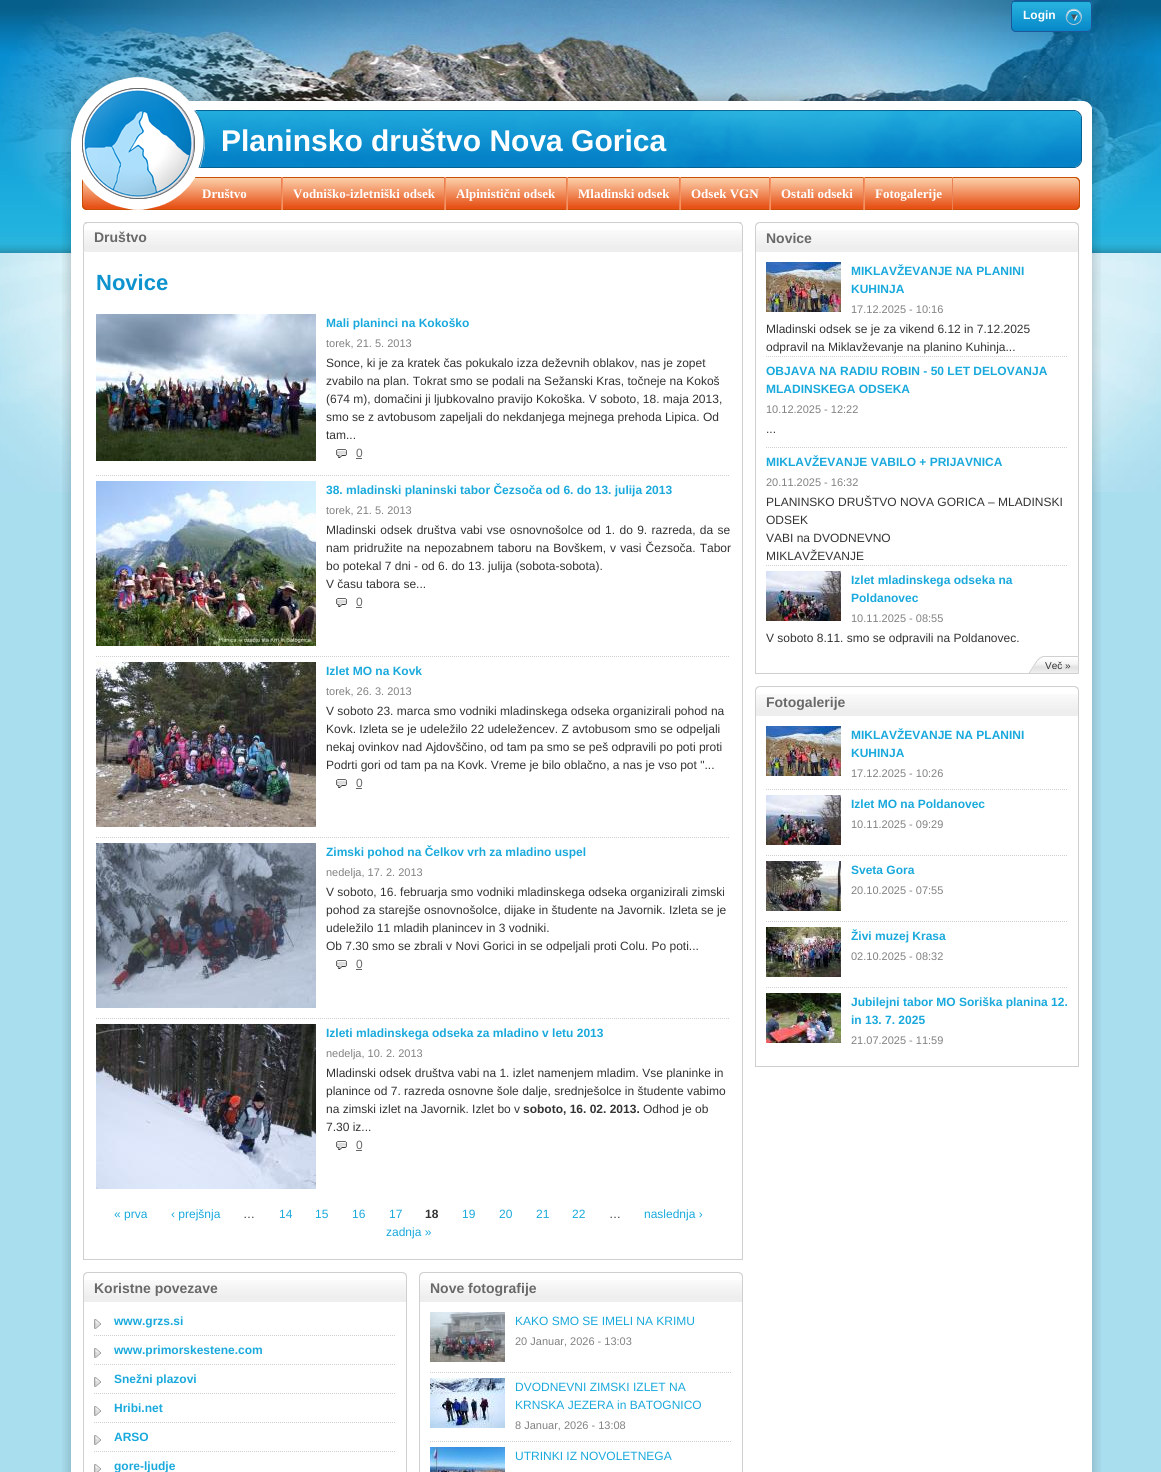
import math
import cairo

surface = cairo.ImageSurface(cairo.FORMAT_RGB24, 1161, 1472)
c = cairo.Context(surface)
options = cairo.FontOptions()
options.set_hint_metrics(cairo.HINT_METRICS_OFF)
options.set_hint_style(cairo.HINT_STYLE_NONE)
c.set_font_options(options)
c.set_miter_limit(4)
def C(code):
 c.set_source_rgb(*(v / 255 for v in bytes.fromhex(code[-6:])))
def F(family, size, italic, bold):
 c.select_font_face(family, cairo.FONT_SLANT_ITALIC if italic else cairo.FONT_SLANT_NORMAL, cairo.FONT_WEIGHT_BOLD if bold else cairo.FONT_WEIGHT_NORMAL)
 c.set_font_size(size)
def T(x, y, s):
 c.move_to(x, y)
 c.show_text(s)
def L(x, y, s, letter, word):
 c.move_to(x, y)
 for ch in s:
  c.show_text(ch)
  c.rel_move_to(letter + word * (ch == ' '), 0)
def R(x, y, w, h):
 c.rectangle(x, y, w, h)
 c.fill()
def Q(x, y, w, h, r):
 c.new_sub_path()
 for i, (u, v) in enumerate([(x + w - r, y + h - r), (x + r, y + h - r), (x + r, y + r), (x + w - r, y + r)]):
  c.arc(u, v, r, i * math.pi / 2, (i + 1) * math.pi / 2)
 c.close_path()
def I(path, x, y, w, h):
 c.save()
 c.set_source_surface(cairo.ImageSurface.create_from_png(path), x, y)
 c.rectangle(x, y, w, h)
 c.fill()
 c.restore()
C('a9deef')
c.paint()
I('3.png',0,0,1161,253)
I('1.png',1011,1,81,31)
Q(1011.5,.5,80,31,4.5)
C('1e5799')
c.set_line_width(1)
c.stroke()
I('2.png',1065,8,17,17)
F('Liberation Sans',12,0,1)
C('ffffff')
T(1023,19,'Login')
I('4.png',0,253,71,239)
I('5.png',62,70,1039,140)
F('Liberation Sans',30,0,1)
T(221,151,'Planinsko društvo Nova Gorica')
C('e98256')
R(281,177,1,33)
F('Liberation Serif',13,0,1)
C('ffffff')
T(202,198,'Društvo')
C('e98256')
R(444,177,1,33)
C('f6925d')
R(282,177,1,33)
C('ffffff')
T(293,198,'Vodniško-izletniški odsek')
C('e98256')
R(566,177,1,33)
C('f6925d')
R(445,177,1,33)
C('ffffff')
T(456,198,'Alpinistični odsek')
C('e98256')
R(679,177,1,33)
C('f6925d')
R(567,177,1,33)
C('ffffff')
T(578,198,'Mladinski odsek')
C('e98256')
R(769,177,1,33)
C('f6925d')
R(680,177,1,33)
C('ffffff')
T(691,198,'Odsek VGN')
C('e98256')
R(863,177,1,33)
C('f6925d')
R(770,177,1,33)
C('ffffff')
T(781,198,'Ostali odseki')
C('e98256')
R(952,177,1,33)
C('f6925d')
R(864,177,1,33)
C('ffffff')
T(875,198,'Fotogalerije')
I('27.png',1092,253,69,239)
I('6.png',62,210,1039,1050)
I('7.png',83,230,660,22)
C('cfcfcf')
c.new_path()
c.move_to(88,222)
c.curve_to(86,222,85,222,84,223)
c.line_to(85,224)
c.curve_to(86,224,87,223,88,223)
c.line_to(738,223)
c.curve_to(739,223,740,224,741,224)
c.line_to(742,223)
c.curve_to(741,222,740,222,738,222)
c.close_path()
c.fill()
c.new_path()
c.move_to(743,252)
c.line_to(743,227)
c.curve_to(743,225.5,742.5,224,741.5,223.5)
c.line_to(741,224)
c.curve_to(741.5,225,742,226,742,227)
c.line_to(742,251)
c.close_path()
c.fill()
C('eeeeee')
c.new_path()
c.move_to(743,252)
c.line_to(742,251)
c.line_to(84,251)
c.line_to(83,252)
c.close_path()
c.fill()
C('cfcfcf')
c.new_path()
c.move_to(83,252)
c.line_to(84,251)
c.line_to(84,227)
c.curve_to(84,226,84.5,225,85,224)
c.line_to(84.5,223.5)
c.curve_to(83.5,224,83,225.5,83,227)
c.close_path()
c.fill()
F('Liberation Sans',14,0,1)
C('696969')
T(94,242,'Društvo')
C('cfcfcf')
R(742,252,1,1008)
R(83,1259,660,1)
R(83,252,1,1008)
F('Liberation Sans',22,0,1)
C('0f93ce')
T(96,290,'Novice')
c.new_path()
c.move_to(96,475.5)
c.line_to(730,475.5)
C('cfcfcf')
c.set_dash([1,1])
c.stroke()
I('8.png',96,314,220,147)
F('Liberation Sans',12,0,1)
C('19a9dc')
T(326,327,'Mali planinci na Kokoško')
F('Liberation Sans',11,0,0)
C('818181')
T(326,347,'torek, 21. 5. 2013')
F('Liberation Sans',12,0,0)
C('333333')
T(326,367,'Sonce, ki je za kratek čas pokukalo izza deževnih oblakov, nas je zopet')
T(326,385,'zvabilo na plan. Tokrat smo se podali na Sežanski Kras, točneje na Kokoš')
T(326,403,'(674 m), domačini ji ljubkovalno pravijo Kokoška. V soboto, 18. maja 2013,')
T(326,421,'smo se z avtobusom zapeljali do nekdanjega mejnega prehoda Lipica. Od')
T(326,439,'tam...')
I('9.png',336,449,11,9)
C('696969')
T(356,457,'0')
C('666666')
R(356,458,6,1)
c.new_path()
c.move_to(96,656.5)
c.line_to(730,656.5)
C('cfcfcf')
c.stroke()
I('10.png',96,481,220,165)
F('Liberation Sans',12,0,1)
C('19a9dc')
T(326,494,'38. mladinski planinski tabor Čezsoča od 6. do 13. julija 2013')
F('Liberation Sans',11,0,0)
C('818181')
T(326,514,'torek, 21. 5. 2013')
F('Liberation Sans',12,0,0)
C('333333')
L(326,534,'Mladinski odsek društva vabi vse osnovnošolce od 1. do 9. razreda, da se',0,1)
L(326,552,'nam pridružite na nepozabnem taboru na Bovškem, v vasi Čezsoča. Tabor',0,.75)
T(326,570,'bo potekal 7 dni - od 6. do 13. julija (sobota-sobota).')
T(326,588,'V času tabora se...')
I('9.png',336,598,11,9)
C('696969')
T(356,606,'0')
C('666666')
R(356,607,6,1)
c.new_path()
c.move_to(96,837.5)
c.line_to(730,837.5)
C('cfcfcf')
c.stroke()
I('11.png',96,662,220,165)
F('Liberation Sans',12,0,1)
C('19a9dc')
T(326,675,'Izlet MO na Kovk')
F('Liberation Sans',11,0,0)
C('818181')
T(326,695,'torek, 26. 3. 2013')
F('Liberation Sans',12,0,0)
C('333333')
T(326,715,'V soboto 23. marca smo vodniki mladinskega odseka organizirali pohod na')
T(326,733,'Kovk. Izleta se je udeležilo 22 udeležencev. Z avtobusom smo se odpeljali')
T(326,751,'nekaj ovinkov nad Ajdovščino, od tam pa smo se peš odpravili po poti proti')
T(326,769,'Podrti gori od tam pa na Kovk. Vreme je bilo oblačno, a nas je vso pot "...')
I('9.png',336,779,11,9)
C('696969')
T(356,787,'0')
C('666666')
R(356,788,6,1)
c.new_path()
c.move_to(96,1018.5)
c.line_to(730,1018.5)
C('cfcfcf')
c.stroke()
I('12.png',96,843,220,165)
F('Liberation Sans',12,0,1)
C('19a9dc')
T(326,856,'Zimski pohod na Čelkov vrh za mladino uspel')
F('Liberation Sans',11,0,0)
C('818181')
T(326,876,'nedelja, 17. 2. 2013')
F('Liberation Sans',12,0,0)
C('333333')
T(326,896,'V soboto, 16. februarja smo vodniki mladinskega odseka organizirali zimski')
T(326,914,'pohod za starejše osnovnošolce, dijake in študente na Javornik. Izleta se je')
T(326,932,'udeležilo 11 mladih planincev in 3 vodniki.')
T(326,950,'Ob 7.30 smo se zbrali v Novi Gorici in se odpeljali proti Colu. Po poti...')
I('9.png',336,960,11,9)
C('696969')
T(356,968,'0')
C('666666')
R(356,969,6,1)
I('13.png',96,1024,220,165)
F('Liberation Sans',12,0,1)
C('19a9dc')
T(326,1037,'Izleti mladinskega odseka za mladino v letu 2013')
F('Liberation Sans',11,0,0)
C('818181')
T(326,1057,'nedelja, 10. 2. 2013')
F('Liberation Sans',12,0,0)
C('333333')
T(326,1077,'Mladinski odsek društva vabi na 1. izlet namenjem mladim. Vse planinke in')
T(326,1095,'planince od 7. razreda osnovne šole dalje, srednješolce in študente vabimo')
T(326,1113,'na zimski izlet na Javornik. Izlet bo v')
F('Liberation Sans',12,0,1)
T(523,1113,'soboto, 16. 02. 2013.')
F('Liberation Sans',12,0,0)
T(643,1113,'Odhod je ob')
T(326,1131,'7.30 iz...')
I('9.png',336,1141,11,9)
C('696969')
T(356,1149,'0')
C('666666')
R(356,1150,6,1)
C('19a9dc')
T(114,1218,'« prva')
T(171,1218,'‹ prejšnja')
C('333333')
T(243,1218,'…')
C('19a9dc')
T(279,1218,'14')
T(315,1218,'15')
T(352,1218,'16')
T(389,1218,'17')
F('Liberation Sans',12,0,1)
C('333333')
T(425,1218,'18')
F('Liberation Sans',12,0,0)
C('19a9dc')
T(462,1218,'19')
T(499,1218,'20')
T(536,1218,'21')
T(572,1218,'22')
C('333333')
T(609,1218,'…')
C('19a9dc')
T(644,1218,'naslednja ›')
T(386,1236,'zadnja »')
I('14.png',756,230,322,22)
C('cfcfcf')
c.set_fill_rule(cairo.FILL_RULE_EVEN_ODD)
c.new_path()
c.move_to(760,222)
c.line_to(1074,222)
c.curve_to(1077,222,1079,224,1079,227)
c.line_to(1079,252)
c.line_to(755,252)
c.line_to(755,227)
c.curve_to(755,224,757,222,760,222)
c.close_path()
c.move_to(760,223)
c.line_to(1074,223)
c.curve_to(1076,223,1078,225,1078,227)
c.line_to(1078,252)
c.line_to(756,252)
c.line_to(756,227)
c.curve_to(756,225,758,223,760,223)
c.close_path()
c.fill()
F('Liberation Sans',14,0,1)
C('696969')
T(766,243,'Novice')
C('cfcfcf')
R(1078,252,1,404)
R(755,673,274,1)
R(755,252,1,422)
c.new_path()
c.move_to(766,356.5)
c.line_to(1068,356.5)
c.stroke()
I('15.png',766,262,75,50)
F('Liberation Sans',12,0,1)
C('19a9dc')
T(851,275,'MIKLAVŽEVANJE NA PLANINI')
T(851,293,'KUHINJA')
F('Liberation Sans',11,0,0)
C('818181')
T(851,313,'17.12.2025 - 10:16')
F('Liberation Sans',12,0,0)
C('333333')
T(766,333,'Mladinski odsek se je za vikend 6.12 in 7.12.2025')
T(766,351,'odpravil na Miklavževanje na planino Kuhinja...')
c.new_path()
c.move_to(766,447.5)
c.line_to(1068,447.5)
C('cfcfcf')
c.stroke()
F('Liberation Sans',12,0,1)
C('19a9dc')
T(766,375,'OBJAVA NA RADIU ROBIN - 50 LET DELOVANJA')
T(766,393,'MLADINSKEGA ODSEKA')
F('Liberation Sans',11,0,0)
C('818181')
T(766,413,'10.12.2025 - 12:22')
F('Liberation Sans',12,0,0)
C('333333')
T(766,433,'...')
c.new_path()
c.move_to(766,565.5)
c.line_to(1068,565.5)
C('cfcfcf')
c.stroke()
F('Liberation Sans',12,0,1)
C('19a9dc')
T(766,466,'MIKLAVŽEVANJE VABILO + PRIJAVNICA')
F('Liberation Sans',11,0,0)
C('818181')
T(766,486,'20.11.2025 - 16:32')
F('Liberation Sans',12,0,0)
C('333333')
T(766,506,'PLANINSKO DRUŠTVO NOVA GORICA – MLADINSKI')
T(766,524,'ODSEK')
T(766,542,'VABI na DVODNEVNO')
T(766,560,'MIKLAVŽEVANJE')
I('16.png',766,571,75,50)
F('Liberation Sans',12,0,1)
C('19a9dc')
T(851,584,'Izlet mladinskega odseka na')
T(851,602,'Poldanovec')
F('Liberation Sans',11,0,0)
C('818181')
T(851,622,'10.11.2025 - 08:55')
F('Liberation Sans',12,0,0)
C('333333')
T(766,642,'V soboto 8.11. smo se odpravili na Poldanovec.')
I('17.png',1029,656,50,18)
F('Liberation Sans',10,0,0)
T(1045,669,'Več »')
I('14.png',756,694,322,22)
C('cfcfcf')
c.new_path()
c.move_to(760,686)
c.line_to(1074,686)
c.curve_to(1077,686,1079,688,1079,691)
c.line_to(1079,716)
c.line_to(755,716)
c.line_to(755,691)
c.curve_to(755,688,757,686,760,686)
c.close_path()
c.move_to(760,687)
c.line_to(1074,687)
c.curve_to(1076,687,1078,689,1078,691)
c.line_to(1078,716)
c.line_to(756,716)
c.line_to(756,691)
c.curve_to(756,689,758,687,760,687)
c.close_path()
c.fill()
F('Liberation Sans',14,0,1)
C('696969')
T(766,707,'Fotogalerije')
C('cfcfcf')
R(1078,716,1,351)
R(755,1066,324,1)
R(755,716,1,351)
c.new_path()
c.move_to(766,789.5)
c.line_to(1068,789.5)
c.stroke()
I('15.png',766,726,75,50)
F('Liberation Sans',12,0,1)
C('19a9dc')
T(851,739,'MIKLAVŽEVANJE NA PLANINI')
T(851,757,'KUHINJA')
F('Liberation Sans',11,0,0)
C('818181')
T(851,777,'17.12.2025 - 10:26')
c.new_path()
c.move_to(766,855.5)
c.line_to(1068,855.5)
C('cfcfcf')
c.stroke()
I('16.png',766,795,75,50)
F('Liberation Sans',12,0,1)
C('19a9dc')
T(851,808,'Izlet MO na Poldanovec')
F('Liberation Sans',11,0,0)
C('818181')
T(851,828,'10.11.2025 - 09:29')
c.new_path()
c.move_to(766,921.5)
c.line_to(1068,921.5)
C('cfcfcf')
c.stroke()
I('18.png',766,861,75,50)
F('Liberation Sans',12,0,1)
C('19a9dc')
T(851,874,'Sveta Gora')
F('Liberation Sans',11,0,0)
C('818181')
T(851,894,'20.10.2025 - 07:55')
c.new_path()
c.move_to(766,987.5)
c.line_to(1068,987.5)
C('cfcfcf')
c.stroke()
I('19.png',766,927,75,50)
F('Liberation Sans',12,0,1)
C('19a9dc')
T(851,940,'Živi muzej Krasa')
F('Liberation Sans',11,0,0)
C('818181')
T(851,960,'02.10.2025 - 08:32')
I('20.png',766,993,75,50)
F('Liberation Sans',12,0,1)
C('19a9dc')
T(851,1006,'Jubilejni tabor MO Soriška planina 12.')
T(851,1024,'in 13. 7. 2025')
F('Liberation Sans',11,0,0)
C('818181')
T(851,1044,'21.07.2025 - 11:59')
I('21.png',62,1260,1039,212)
I('14.png',84,1280,322,22)
C('cfcfcf')
c.new_path()
c.move_to(88,1272)
c.line_to(402,1272)
c.curve_to(405,1272,407,1274,407,1277)
c.line_to(407,1302)
c.line_to(83,1302)
c.line_to(83,1277)
c.curve_to(83,1274,85,1272,88,1272)
c.close_path()
c.move_to(88,1273)
c.line_to(402,1273)
c.curve_to(404,1273,406,1275,406,1277)
c.line_to(406,1302)
c.line_to(84,1302)
c.line_to(84,1277)
c.curve_to(84,1275,86,1273,88,1273)
c.close_path()
c.fill()
F('Liberation Sans',14,0,1)
C('696969')
T(94,1293,'Koristne povezave')
C('cfcfcf')
R(406,1302,1,170)
R(83,1302,1,170)
I('22.png',94,1319,7,10)
c.new_path()
c.move_to(94,1335.5)
c.line_to(396,1335.5)
c.stroke()
F('Liberation Sans',12,0,1)
C('19a9dc')
T(114,1325,'www.grzs.si')
I('22.png',94,1348,7,10)
c.new_path()
c.move_to(94,1364.5)
c.line_to(396,1364.5)
C('cfcfcf')
c.stroke()
C('19a9dc')
T(114,1354,'www.primorskestene.com')
I('22.png',94,1377,7,10)
c.new_path()
c.move_to(94,1393.5)
c.line_to(396,1393.5)
C('cfcfcf')
c.stroke()
C('19a9dc')
T(114,1383,'Snežni plazovi')
I('22.png',94,1406,7,10)
c.new_path()
c.move_to(94,1422.5)
c.line_to(396,1422.5)
C('cfcfcf')
c.stroke()
C('19a9dc')
T(114,1412,'Hribi.net')
I('22.png',94,1435,7,10)
c.new_path()
c.move_to(94,1451.5)
c.line_to(396,1451.5)
C('cfcfcf')
c.stroke()
C('19a9dc')
T(114,1441,'ARSO')
I('23.png',94,1464,7,8)
T(114,1470,'gore-ljudje')
I('14.png',420,1280,322,22)
C('cfcfcf')
c.new_path()
c.move_to(424,1272)
c.line_to(738,1272)
c.curve_to(741,1272,743,1274,743,1277)
c.line_to(743,1302)
c.line_to(419,1302)
c.line_to(419,1277)
c.curve_to(419,1274,421,1272,424,1272)
c.close_path()
c.move_to(424,1273)
c.line_to(738,1273)
c.curve_to(740,1273,742,1275,742,1277)
c.line_to(742,1302)
c.line_to(420,1302)
c.line_to(420,1277)
c.curve_to(420,1275,422,1273,424,1273)
c.close_path()
c.fill()
F('Liberation Sans',14,0,1)
C('696969')
T(430,1293,'Nove fotografije')
C('cfcfcf')
R(742,1302,1,170)
R(419,1302,1,170)
c.new_path()
c.move_to(430,1372.5)
c.line_to(732,1372.5)
c.stroke()
I('24.png',430,1312,75,50)
F('Liberation Sans',12,0,0)
C('19a9dc')
T(515,1325,'KAKO SMO SE IMELI NA KRIMU')
F('Liberation Sans',11,0,0)
C('818181')
T(515,1345,'20 Januar, 2026 - 13:03')
c.new_path()
c.move_to(430,1441.5)
c.line_to(732,1441.5)
C('cfcfcf')
c.stroke()
I('25.png',430,1378,75,50)
F('Liberation Sans',12,0,0)
C('19a9dc')
T(515,1391,'DVODNEVNI ZIMSKI IZLET NA')
T(515,1409,'KRNSKA JEZERA in BATOGNICO')
F('Liberation Sans',11,0,0)
C('818181')
T(515,1429,'8 Januar, 2026 - 13:08')
I('26.png',430,1447,75,25)
F('Liberation Sans',12,0,0)
C('19a9dc')
T(515,1460,'UTRINKI IZ NOVOLETNEGA')
surface.write_to_png('o.png')
